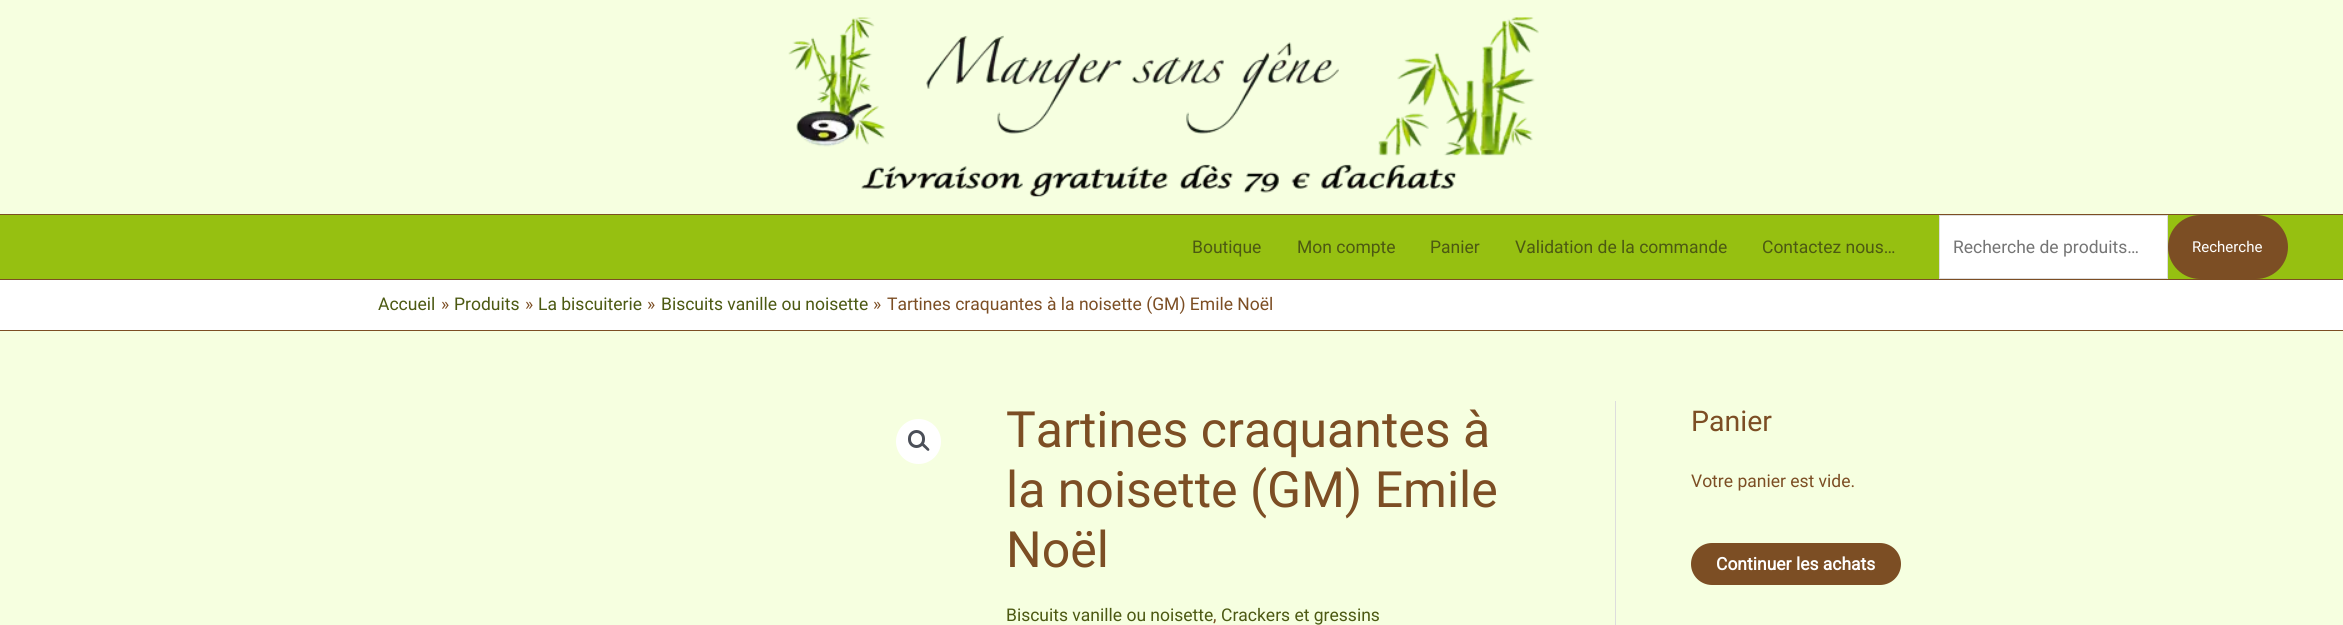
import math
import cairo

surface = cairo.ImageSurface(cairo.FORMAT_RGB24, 2343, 625)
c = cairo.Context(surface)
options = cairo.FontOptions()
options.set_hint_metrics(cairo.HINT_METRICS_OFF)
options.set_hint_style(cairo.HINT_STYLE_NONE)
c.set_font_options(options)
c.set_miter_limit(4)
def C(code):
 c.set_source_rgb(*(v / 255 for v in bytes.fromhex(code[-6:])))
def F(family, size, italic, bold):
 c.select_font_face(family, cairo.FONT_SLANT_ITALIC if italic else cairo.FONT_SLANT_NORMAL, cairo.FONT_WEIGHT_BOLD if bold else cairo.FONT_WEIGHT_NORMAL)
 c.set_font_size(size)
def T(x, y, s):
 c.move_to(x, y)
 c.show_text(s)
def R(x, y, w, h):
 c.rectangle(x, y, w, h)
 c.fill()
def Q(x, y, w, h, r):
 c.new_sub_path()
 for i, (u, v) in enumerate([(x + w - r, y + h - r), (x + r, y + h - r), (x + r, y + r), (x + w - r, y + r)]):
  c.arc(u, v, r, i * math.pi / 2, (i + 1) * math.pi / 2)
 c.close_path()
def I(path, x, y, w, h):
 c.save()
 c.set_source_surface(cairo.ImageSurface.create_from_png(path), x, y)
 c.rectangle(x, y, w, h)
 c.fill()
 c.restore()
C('f6ffe0')
c.paint()
C('7c4e24')
R(0,214,2343,1)
I('1.png',788,17,751,180)
C('96c011')
R(0,215,2343,64)
C('7c4e24')
R(0,279,2343,1)
F('Roboto',17.5,0,0)
C('4c5912')
T(1192,253,'Boutique')
T(1297,253,'Mon compte')
T(1430,253,'Panier')
T(1515,253,'Validation de la commande')
T(1762,253,'Contactez nous…')
C('ffffff')
c.rectangle(1939.5,215.5,228,63)
c.fill_preserve()
C('dddddd')
c.set_line_width(1)
c.stroke()
C('757575')
T(1953,253,'Recherche de produits…')
C('7c4e24')
Q(2168,215,120,64,32)
c.fill()
F('Roboto',15,0,0)
C('ffffff')
T(2192,252,'Recherche')
R(0,280,2343,50)
C('7c4e24')
R(0,330,2343,1)
F('Roboto',17.5,0,0)
C('4c5912')
T(378,310,'Accueil')
C('7c4e24')
T(441,310,'»')
C('4c5912')
T(454,310,'Produits')
C('7c4e24')
T(525,310,'»')
C('4c5912')
T(538,310,'La biscuiterie')
C('7c4e24')
T(647,310,'»')
C('4c5912')
T(661,310,'Biscuits vanille ou noisette')
C('7c4e24')
T(873,310,'»')
T(887,310,'Tartines craquantes à la noisette (GM) Emile Noël')
C('dddddd')
R(1615,401,1,224)
C('ffffff')
c.new_path()
c.arc(918.5,441.5,22.5,0,2 * math.pi)
c.fill()
Q(909.5,431.5,14,15,7)
C('4b4f58')
c.set_line_width(3)
c.stroke()
c.new_path()
c.move_to(922,443.5)
c.curve_to(923.5,442,925.5,445.5,926.5,446)
c.curve_to(927,447,930.5,449,929,450.5)
c.curve_to(927.5,452,925.5,448.5,924.5,448)
c.curve_to(923.5,447,920.5,445,922,443.5)
c.close_path()
c.fill()
F('Roboto',50,0,0)
C('7c4e24')
T(1006,447,'Tartines craquantes à')
T(1006,507,'la noisette (GM) Emile')
T(1006,567,'Noël')
F('Roboto',17.5,0,0)
C('4c5912')
T(1006,621,'Biscuits vanille ou noisette')
C('7c4e24')
T(1213,621,',')
C('4c5912')
T(1221,621,'Crackers et gressins')
F('Roboto',28.5,0,0)
C('7c4e24')
T(1691,431,'Panier')
F('Roboto',17.5,0,0)
T(1691,487,'Votre panier est vide.')
Q(1691,543,210,42,21)
c.fill()
F('Roboto',17.5,0,1)
C('ffffff')
T(1716,570,'Continuer les achats')
surface.write_to_png('o.png')
